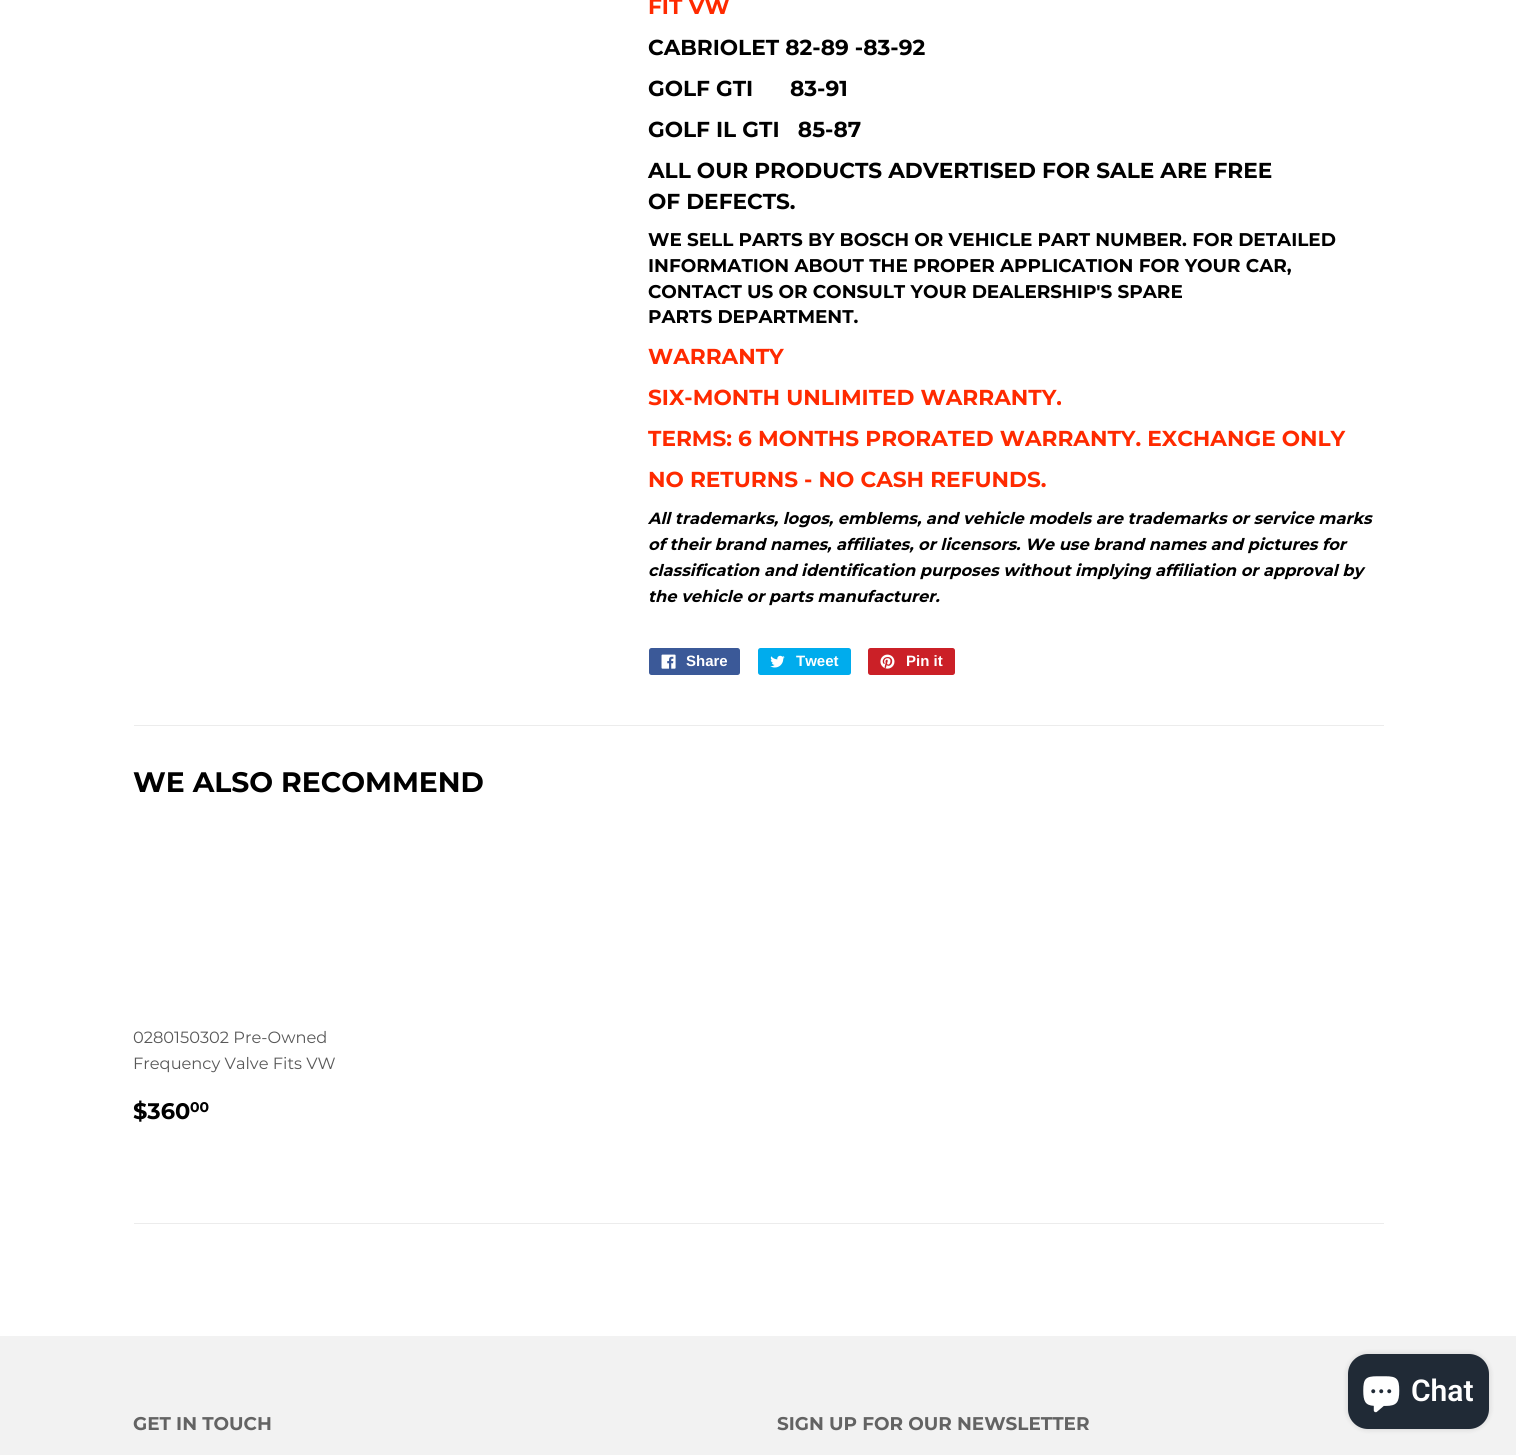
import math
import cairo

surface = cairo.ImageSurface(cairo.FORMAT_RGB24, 1516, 1455)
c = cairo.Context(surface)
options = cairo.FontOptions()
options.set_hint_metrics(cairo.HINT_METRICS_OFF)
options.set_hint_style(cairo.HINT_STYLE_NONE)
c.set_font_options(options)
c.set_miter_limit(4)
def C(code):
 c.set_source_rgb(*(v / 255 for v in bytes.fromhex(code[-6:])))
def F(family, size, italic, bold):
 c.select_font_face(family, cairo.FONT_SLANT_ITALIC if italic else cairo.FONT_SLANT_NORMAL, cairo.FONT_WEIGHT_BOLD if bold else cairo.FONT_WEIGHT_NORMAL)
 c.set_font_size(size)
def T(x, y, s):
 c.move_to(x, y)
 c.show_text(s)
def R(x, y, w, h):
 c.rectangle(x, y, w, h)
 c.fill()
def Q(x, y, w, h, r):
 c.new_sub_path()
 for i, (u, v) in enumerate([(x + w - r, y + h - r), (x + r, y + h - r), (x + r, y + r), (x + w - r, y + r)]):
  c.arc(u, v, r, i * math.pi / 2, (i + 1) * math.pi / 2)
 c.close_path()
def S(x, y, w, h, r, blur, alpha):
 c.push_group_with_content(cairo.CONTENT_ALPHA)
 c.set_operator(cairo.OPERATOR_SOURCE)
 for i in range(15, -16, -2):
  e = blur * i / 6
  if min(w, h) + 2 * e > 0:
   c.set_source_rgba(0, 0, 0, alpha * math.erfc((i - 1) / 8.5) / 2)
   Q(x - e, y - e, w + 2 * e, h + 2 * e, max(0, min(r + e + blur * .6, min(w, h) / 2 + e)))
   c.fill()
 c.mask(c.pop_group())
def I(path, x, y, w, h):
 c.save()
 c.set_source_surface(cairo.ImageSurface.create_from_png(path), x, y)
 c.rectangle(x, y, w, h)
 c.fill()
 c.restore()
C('ffffff')
c.paint()
F('Montserrat',21.65,0,1)
C('ff2a00')
T(648,14,'FIT VW')
C('000000')
T(648,55,'CABRIOLET 82-89 -83-92')
T(648,96,'GOLF GTI      83-91')
T(648,137,'GOLF IL GTI   85-87')
T(648,178,'ALL OUR PRODUCTS ADVERTISED FOR SALE ARE FREE')
T(648,209,'OF DEFECTS.')
F('Montserrat',18.4,0,1)
T(648,246,'WE SELL PARTS BY BOSCH OR VEHICLE PART NUMBER. FOR DETAILED')
T(648,272,'INFORMATION ABOUT THE PROPER APPLICATION FOR YOUR CAR,')
T(648,298,'CONTACT US OR CONSULT YOUR DEALERSHIP\'S SPARE')
T(648,323,'PARTS DEPARTMENT.')
F('Montserrat',21.65,0,1)
C('ff2a00')
T(648,364,'WARRANTY')
T(648,405,'SIX-MONTH UNLIMITED WARRANTY.')
T(648,446,'TERMS: 6 MONTHS PRORATED WARRANTY. EXCHANGE ONLY')
T(648,487,'NO RETURNS - NO CASH REFUNDS.')
F('Montserrat',16.25,1,1)
C('000000')
T(648,524,'All trademarks, logos, emblems, and vehicle models are trademarks or service marks')
T(648,550,'of their brand names, affiliates, or licensors. We use brand names and pictures for')
T(648,576,'classification and identification purposes without implying affiliation or approval by')
T(648,602,'the vehicle or parts manufacturer.')
C('3b5998')
Q(649,648,91,27,2.5)
c.fill()
I('1.png',661,654,15,15)
F('Liberation Sans',15,0,1)
C('ffffff')
T(686,666,'Share')
C('00aced')
Q(758,648,93,27,2.5)
c.fill()
I('2.png',770,655,15,13)
C('ffffff')
T(796,666,'Tweet')
C('cb2027')
Q(868,648,87,27,2.5)
c.fill()
I('3.png',880,654,15,15)
C('ffffff')
T(906,666,'Pin it')
C('ececec')
R(134,725,1250,1)
F('Montserrat',28.2,0,1)
C('000000')
T(133,792,'WE ALSO RECOMMEND')
F('Montserrat',16.25,0,0)
C('585858')
T(133,1043,'0280150302 Pre-Owned')
T(133,1069,'Frequency Valve Fits VW')
F('Montserrat',22.5,0,1)
C('000000')
T(133,1119,'$360')
F('Montserrat',14,0,1)
T(190,1112,'00')
C('ececec')
R(134,1223,1250,1)
C('f2f2f2')
R(0,1336,1516,119)
C('000000')
S(1348,1354,141,75,20,3,.15)
C('202a36')
Q(1348,1354,141,75,20)
c.fill()
I('4.png',1363,1376,37,37)
F('Roboto SemiBold',30,0,0)
C('ffffff')
T(1411,1401,'Chat')
F('Montserrat',18.4,0,1)
C('636363')
T(133,1430,'GET IN TOUCH')
T(777,1430,'SIGN UP FOR OUR NEWSLETTER')
surface.write_to_png('o.png')
